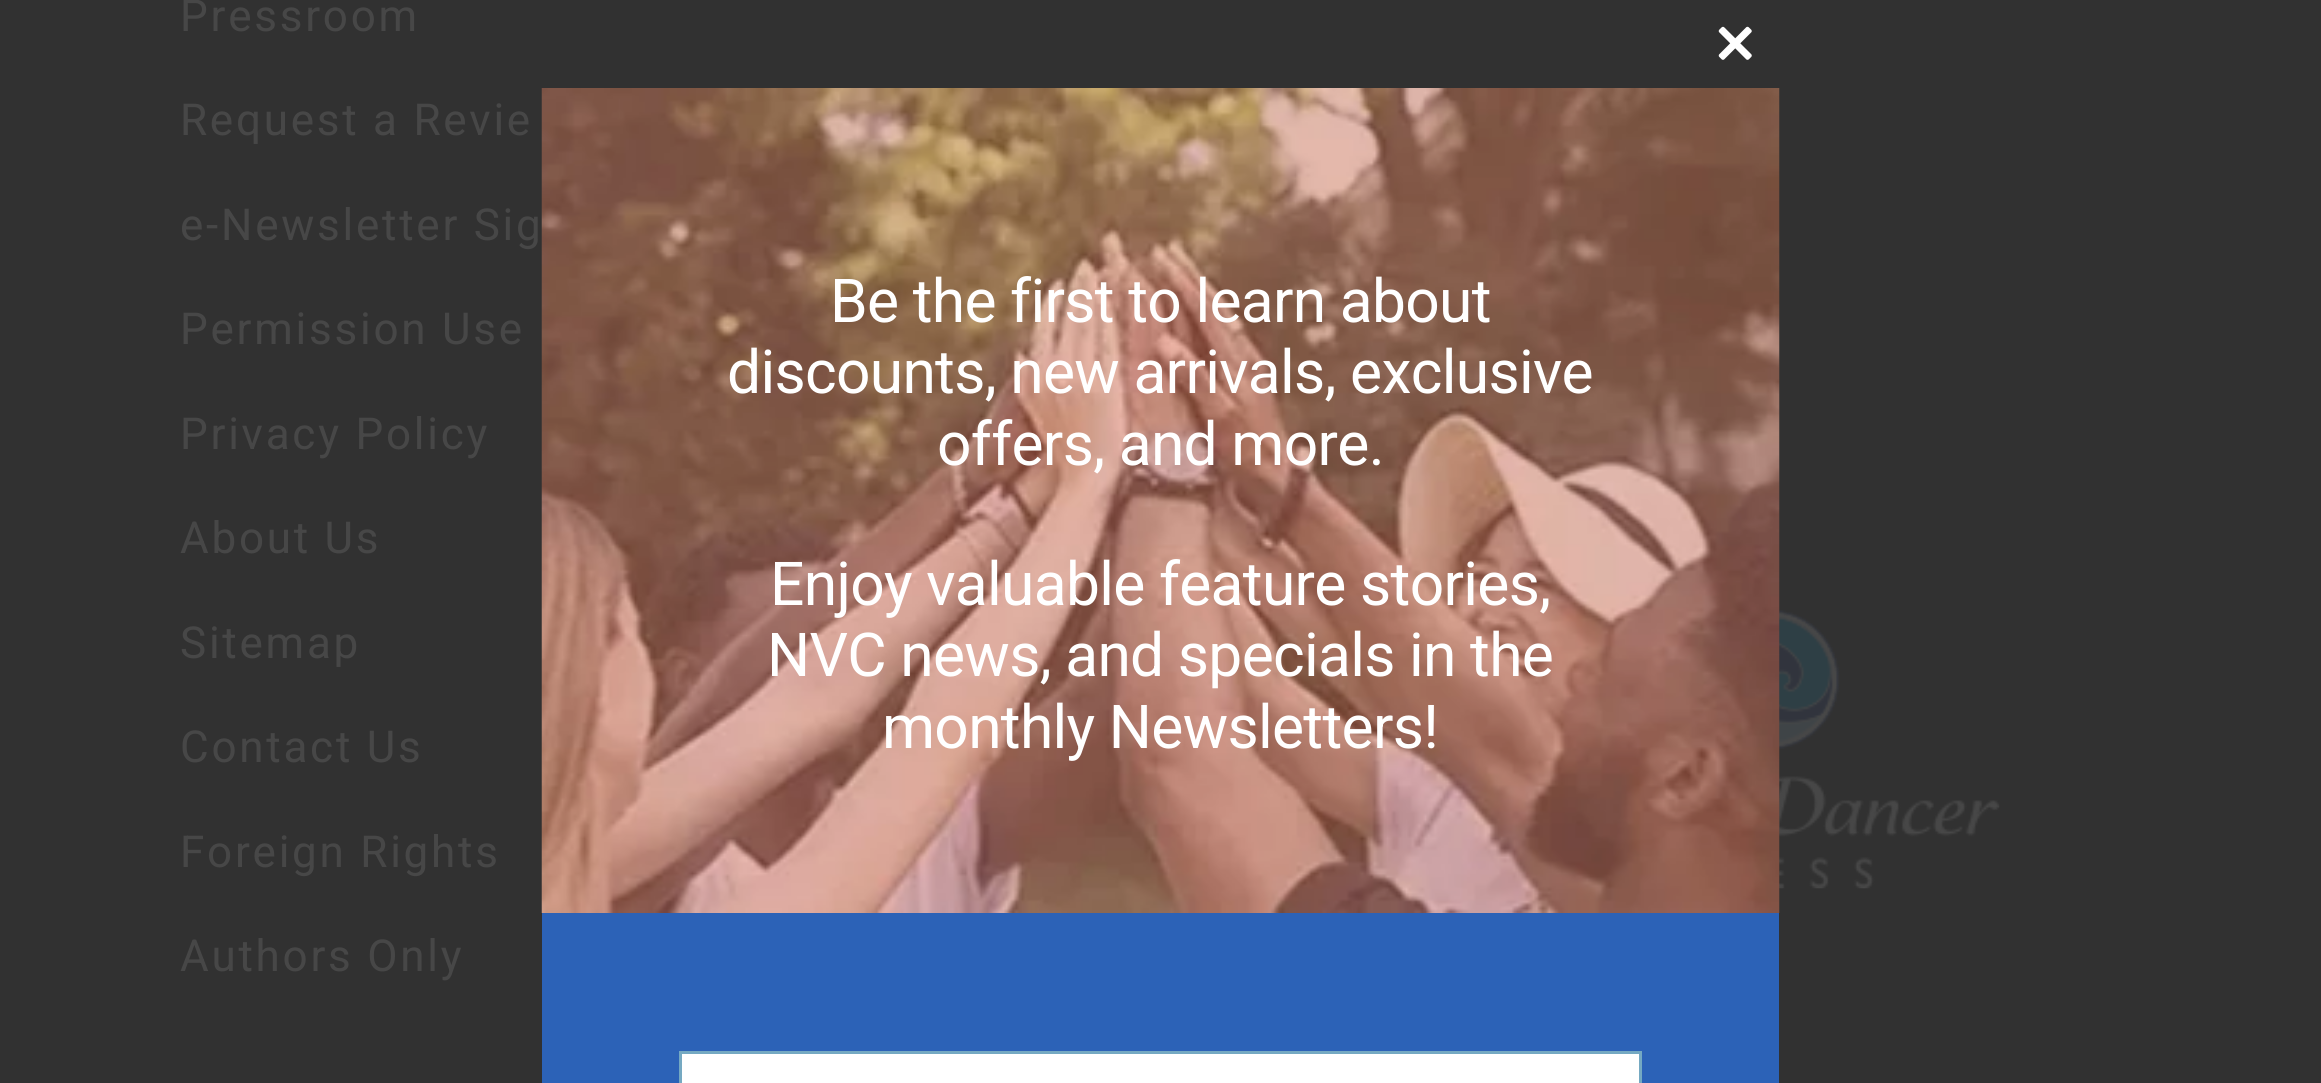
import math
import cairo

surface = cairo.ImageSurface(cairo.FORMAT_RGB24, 2321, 1083)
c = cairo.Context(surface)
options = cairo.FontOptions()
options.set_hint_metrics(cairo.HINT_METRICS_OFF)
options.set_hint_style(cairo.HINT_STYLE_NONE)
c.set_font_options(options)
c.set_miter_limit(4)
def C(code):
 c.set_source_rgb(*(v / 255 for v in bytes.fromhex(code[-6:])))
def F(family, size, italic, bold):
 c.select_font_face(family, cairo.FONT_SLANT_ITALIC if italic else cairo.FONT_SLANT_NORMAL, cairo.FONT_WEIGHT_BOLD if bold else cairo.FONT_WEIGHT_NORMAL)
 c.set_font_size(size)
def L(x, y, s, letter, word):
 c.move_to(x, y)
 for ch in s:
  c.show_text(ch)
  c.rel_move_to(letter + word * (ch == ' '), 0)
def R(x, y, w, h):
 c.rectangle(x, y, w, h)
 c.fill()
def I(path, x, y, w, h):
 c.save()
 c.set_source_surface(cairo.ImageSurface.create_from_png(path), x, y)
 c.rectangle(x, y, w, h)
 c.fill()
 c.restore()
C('313131')
c.paint()
F('Roboto',44,0,0)
C('474747')
L(180,31,'Pressroom',2.75,0)
L(180,135,'Request a Revie',2.75,0)
L(180,240,'e-Newsletter Sig',2.75,0)
L(180,344,'Permission Use',2.75,0)
L(180,449,'Privacy Policy',2.75,0)
L(180,553,'About Us',2.75,0)
L(180,658,'Sitemap',2.75,0)
L(180,762,'Contact Us',2.75,0)
L(180,867,'Foreign Rights',2.75,0)
L(180,971,'Authors Only',2.75,0)
I('1.png',1779,610,221,279)
I('2.png',1718,26,34,34)
I('3.png',541,88,1239,825)
F('Roboto',60.5,0,0)
C('ffffff')
L(830,322,'Be the first to learn about',-.7,0)
L(727,393,'discounts, new arrivals, exclusive',-.7,0)
L(937,465,'offers, and more.',-.7,0)
L(770,605,'Enjoy valuable feature stories,',-.7,0)
L(767,676,'NVC news, and specials in the',-.7,0)
L(882,748,'monthly Newsletters!',-.7,0)
C('2c62b7')
R(542,913,1237,170)
C('ffffff')
c.rectangle(680.5,1052.5,960,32)
c.fill_preserve()
C('75a9c2')
c.set_line_width(3)
c.stroke()
surface.write_to_png('o.png')
